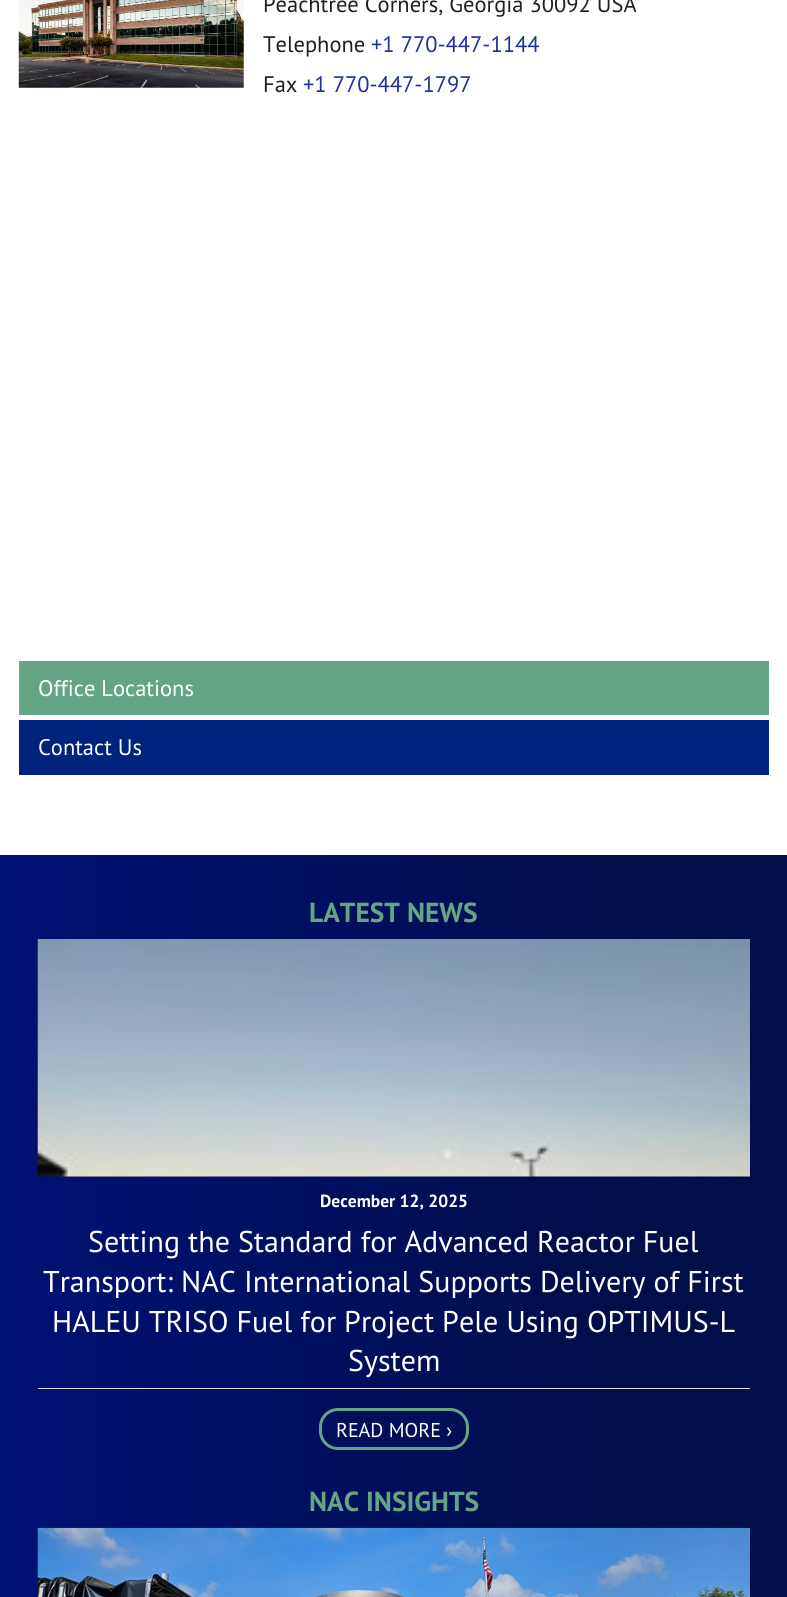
import math
import cairo

surface = cairo.ImageSurface(cairo.FORMAT_RGB24, 787, 1597)
c = cairo.Context(surface)
options = cairo.FontOptions()
options.set_hint_metrics(cairo.HINT_METRICS_OFF)
options.set_hint_style(cairo.HINT_STYLE_NONE)
c.set_font_options(options)
c.set_miter_limit(4)
def C(code):
 c.set_source_rgb(*(v / 255 for v in bytes.fromhex(code[-6:])))
def F(family, size, italic, bold):
 c.select_font_face(family, cairo.FONT_SLANT_ITALIC if italic else cairo.FONT_SLANT_NORMAL, cairo.FONT_WEIGHT_BOLD if bold else cairo.FONT_WEIGHT_NORMAL)
 c.set_font_size(size)
def T(x, y, s):
 c.move_to(x, y)
 c.show_text(s)
def R(x, y, w, h):
 c.rectangle(x, y, w, h)
 c.fill()
def Q(x, y, w, h, r):
 c.new_sub_path()
 for i, (u, v) in enumerate([(x + w - r, y + h - r), (x + r, y + h - r), (x + r, y + r), (x + w - r, y + r)]):
  c.arc(u, v, r, i * math.pi / 2, (i + 1) * math.pi / 2)
 c.close_path()
def I(path, x, y, w, h):
 c.save()
 c.set_source_surface(cairo.ImageSurface.create_from_png(path), x, y)
 c.rectangle(x, y, w, h)
 c.fill()
 c.restore()
C('ffffff')
c.paint()
I('1.png',18,0,226,88)
F('PT Sans',22.5,0,0)
C('1f1f1f')
T(263,12,'Peachtree Corners, Georgia 30092 USA')
T(263,52,'Telephone')
C('1f3098')
T(371,52,'+1 770-447-1144')
C('1f1f1f')
T(263,92,'Fax')
C('1f3098')
T(303,92,'+1 770-447-1797')
C('66a486')
R(19,661,750,54)
C('ffffff')
T(38,696,'Office Locations')
C('01237e')
R(19,720,750,55)
C('ffffff')
T(38,755,'Contact Us')
gradient = cairo.LinearGradient(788,1445,0,1445)
gradient.add_color_stop_rgba(.23,0,0.055,0.29,1)
gradient.add_color_stop_rgba(.99,0,0.067,0.455,1)
c.set_source(gradient)
R(0,855,787,742)
F('PT Sans',27.5,0,1)
C('66a486')
T(309,922,'LATEST NEWS')
I('2.png',37,939,713,238)
F('PT Sans',17.5,0,1)
C('ffffff')
T(320,1207,'December 12, 2025')
F('PT Sans',30,0,0)
T(88,1252,'Setting the Standard for Advanced Reactor Fuel')
T(43,1292,'Transport: NAC International Supports Delivery of First')
T(52,1332,'HALEU TRISO Fuel for Project Pele Using OPTIMUS-L')
T(348,1371,'System')
C('dddddd')
R(38,1388,712,1)
Q(320.5,1409.5,147,39,17.5)
C('66a486')
c.set_line_width(3)
c.stroke()
F('PT Sans',20,0,0)
C('ffffff')
T(336,1437,'READ MORE ›')
F('PT Sans',27.5,0,1)
C('66a486')
T(309,1511,'NAC INSIGHTS')
I('3.png',37,1527,713,70)
surface.write_to_png('o.png')
